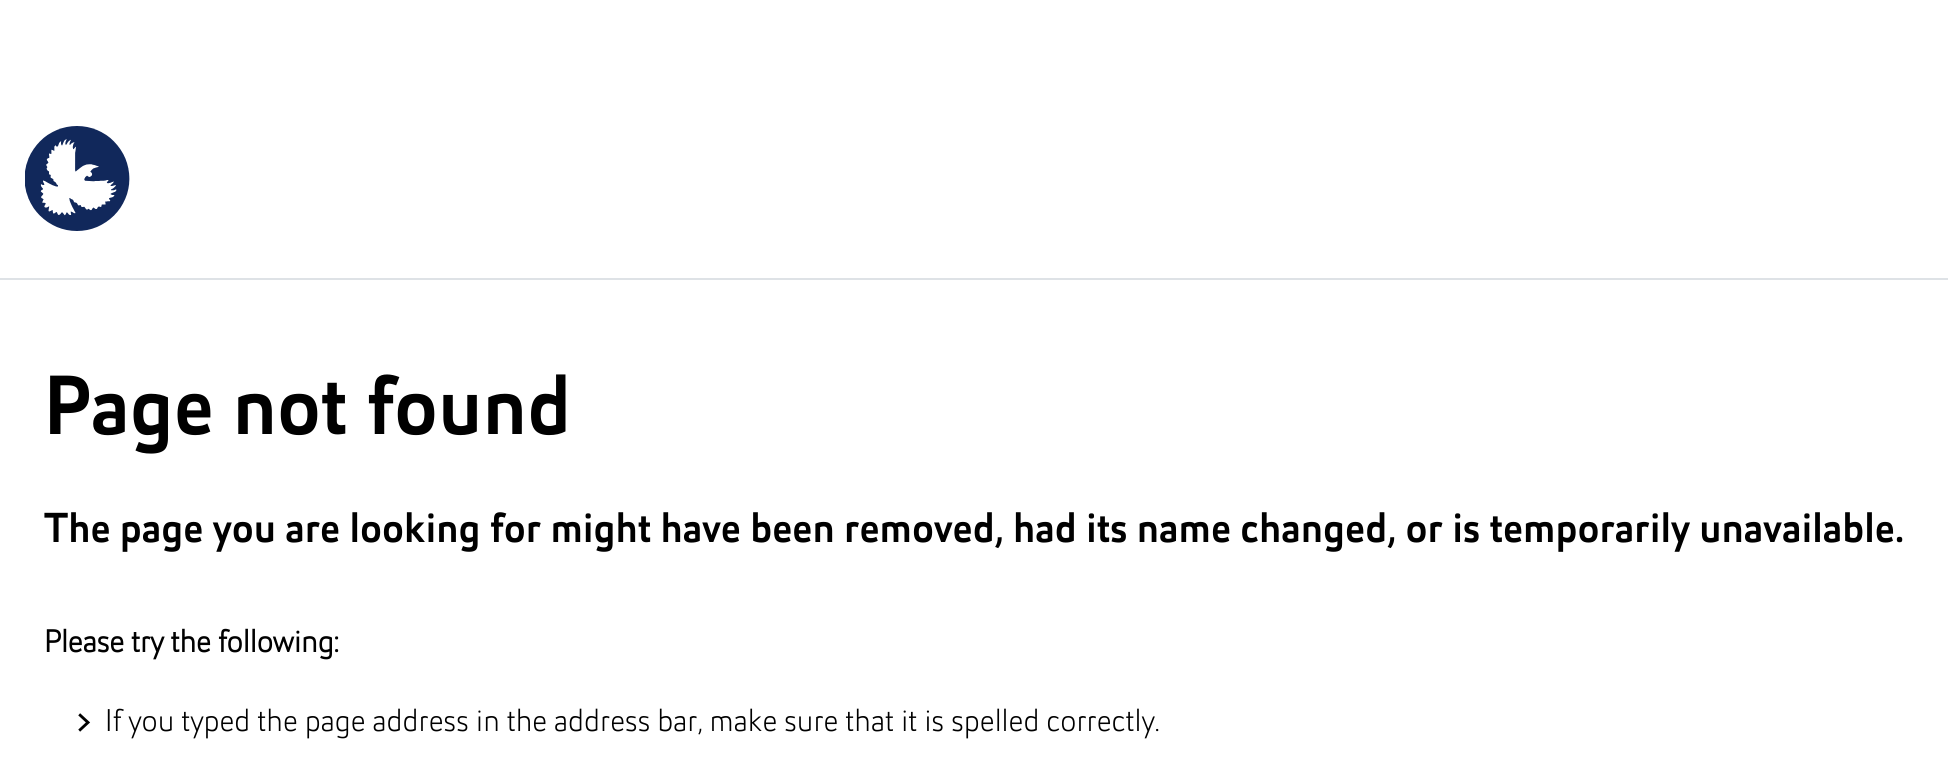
import math
import cairo

surface = cairo.ImageSurface(cairo.FORMAT_RGB24, 1948, 761)
c = cairo.Context(surface)
options = cairo.FontOptions()
options.set_hint_metrics(cairo.HINT_METRICS_OFF)
options.set_hint_style(cairo.HINT_STYLE_NONE)
c.set_font_options(options)
c.set_miter_limit(4)
def C(code):
 c.set_source_rgb(*(v / 255 for v in bytes.fromhex(code[-6:])))
def F(family, size, italic, bold):
 c.select_font_face(family, cairo.FONT_SLANT_ITALIC if italic else cairo.FONT_SLANT_NORMAL, cairo.FONT_WEIGHT_BOLD if bold else cairo.FONT_WEIGHT_NORMAL)
 c.set_font_size(size)
def T(x, y, s):
 c.move_to(x, y)
 c.show_text(s)
def R(x, y, w, h):
 c.rectangle(x, y, w, h)
 c.fill()
def I(path, x, y, w, h):
 c.save()
 c.set_source_surface(cairo.ImageSurface.create_from_png(path), x, y)
 c.rectangle(x, y, w, h)
 c.fill()
 c.restore()
C('ffffff')
c.paint()
C('dee2e6')
R(0,278,1948,2)
I('1.png',25,126,105,105)
F('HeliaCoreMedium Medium',84,0,0)
C('000000')
T(44,434,'Page not found')
F('HeliaCoreMedium Medium',42,0,0)
T(44,542,'The page you are looking for might have been removed, had its name changed, or is temporarily unavailable.')
F('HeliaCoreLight',31.5,0,1)
T(44,652,'Please try the following:')
F('HeliaCoreMedium Medium',35,0,0)
T(77,731,'›')
F('HeliaCoreLight Light',31.5,0,0)
T(105,731,'If you typed the page address in the address bar, make sure that it is spelled correctly.')
surface.write_to_png('o.png')
